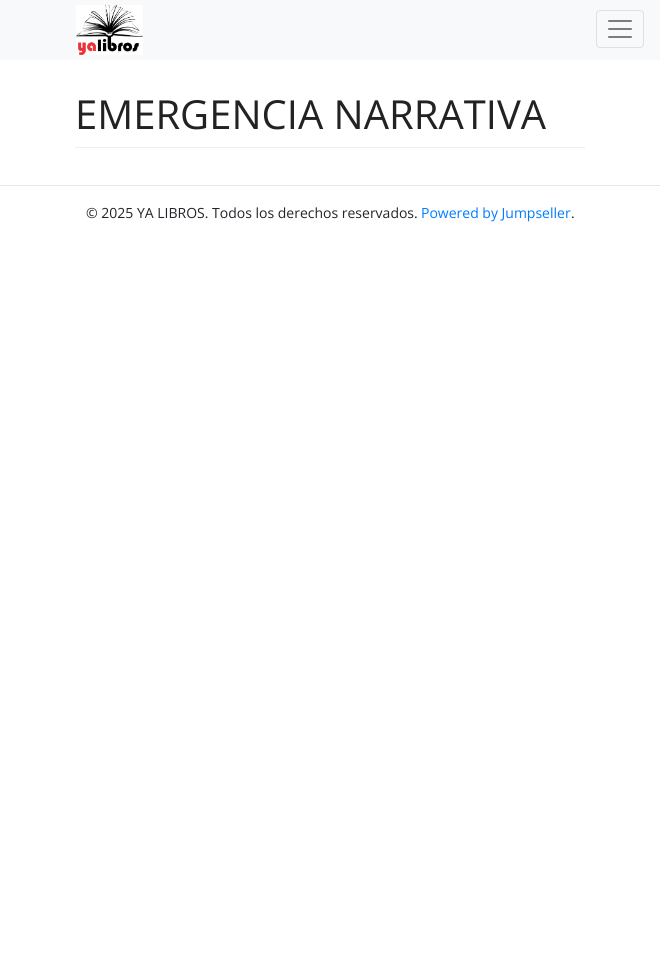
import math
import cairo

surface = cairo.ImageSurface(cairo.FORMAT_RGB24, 660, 955)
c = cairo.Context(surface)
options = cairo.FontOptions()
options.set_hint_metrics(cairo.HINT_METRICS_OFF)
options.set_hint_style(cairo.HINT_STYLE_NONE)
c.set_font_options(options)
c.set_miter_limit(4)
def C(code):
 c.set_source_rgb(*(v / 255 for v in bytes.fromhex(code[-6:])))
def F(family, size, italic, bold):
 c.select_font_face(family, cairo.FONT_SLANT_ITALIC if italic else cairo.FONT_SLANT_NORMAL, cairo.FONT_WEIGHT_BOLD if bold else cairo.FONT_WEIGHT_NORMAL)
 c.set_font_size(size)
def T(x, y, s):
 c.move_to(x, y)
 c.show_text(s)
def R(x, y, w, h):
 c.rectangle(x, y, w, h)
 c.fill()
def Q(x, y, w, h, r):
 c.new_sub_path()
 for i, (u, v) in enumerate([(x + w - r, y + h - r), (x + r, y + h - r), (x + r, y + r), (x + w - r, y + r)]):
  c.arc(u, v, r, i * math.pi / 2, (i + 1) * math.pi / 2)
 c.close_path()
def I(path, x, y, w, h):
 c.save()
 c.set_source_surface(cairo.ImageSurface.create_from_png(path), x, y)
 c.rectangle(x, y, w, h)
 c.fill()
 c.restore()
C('ffffff')
c.paint()
C('f8f9fa')
R(0,0,660,60)
I('1.png',76,5,67,50)
Q(596.5,10.5,47,37,3.5)
C('dfe0e1')
c.set_line_width(1)
c.stroke()
I('2.png',608,20,24,18)
C('eeeeee')
R(75,147,510,1)
F('Open Sans',40,0,0)
C('222222')
T(75,129,'EMERGENCIA NARRATIVA')
C('e6e6e6')
R(0,185,660,1)
F('Open Sans',14,0,0)
C('212529')
T(86,218,'© 2025 YA LIBROS. Todos los derechos reservados.')
C('007bff')
T(421,218,'Powered by Jumpseller')
C('212529')
T(571,218,'.')
surface.write_to_png('o.png')
